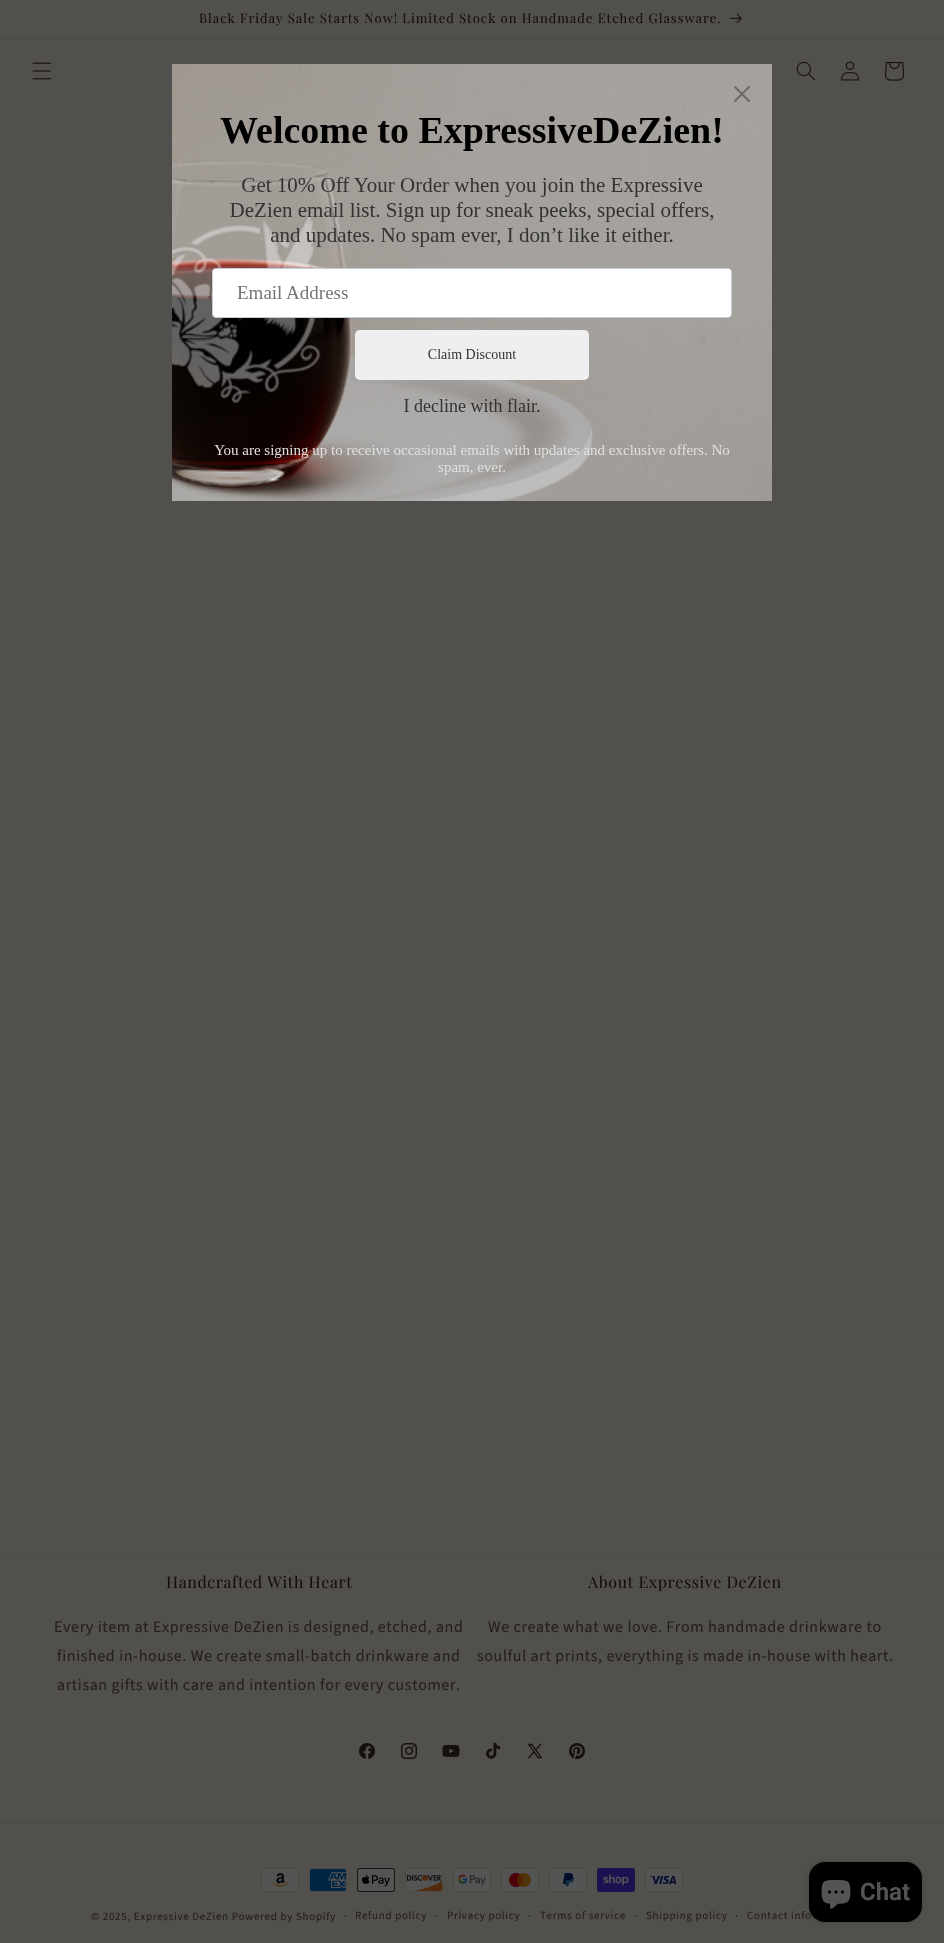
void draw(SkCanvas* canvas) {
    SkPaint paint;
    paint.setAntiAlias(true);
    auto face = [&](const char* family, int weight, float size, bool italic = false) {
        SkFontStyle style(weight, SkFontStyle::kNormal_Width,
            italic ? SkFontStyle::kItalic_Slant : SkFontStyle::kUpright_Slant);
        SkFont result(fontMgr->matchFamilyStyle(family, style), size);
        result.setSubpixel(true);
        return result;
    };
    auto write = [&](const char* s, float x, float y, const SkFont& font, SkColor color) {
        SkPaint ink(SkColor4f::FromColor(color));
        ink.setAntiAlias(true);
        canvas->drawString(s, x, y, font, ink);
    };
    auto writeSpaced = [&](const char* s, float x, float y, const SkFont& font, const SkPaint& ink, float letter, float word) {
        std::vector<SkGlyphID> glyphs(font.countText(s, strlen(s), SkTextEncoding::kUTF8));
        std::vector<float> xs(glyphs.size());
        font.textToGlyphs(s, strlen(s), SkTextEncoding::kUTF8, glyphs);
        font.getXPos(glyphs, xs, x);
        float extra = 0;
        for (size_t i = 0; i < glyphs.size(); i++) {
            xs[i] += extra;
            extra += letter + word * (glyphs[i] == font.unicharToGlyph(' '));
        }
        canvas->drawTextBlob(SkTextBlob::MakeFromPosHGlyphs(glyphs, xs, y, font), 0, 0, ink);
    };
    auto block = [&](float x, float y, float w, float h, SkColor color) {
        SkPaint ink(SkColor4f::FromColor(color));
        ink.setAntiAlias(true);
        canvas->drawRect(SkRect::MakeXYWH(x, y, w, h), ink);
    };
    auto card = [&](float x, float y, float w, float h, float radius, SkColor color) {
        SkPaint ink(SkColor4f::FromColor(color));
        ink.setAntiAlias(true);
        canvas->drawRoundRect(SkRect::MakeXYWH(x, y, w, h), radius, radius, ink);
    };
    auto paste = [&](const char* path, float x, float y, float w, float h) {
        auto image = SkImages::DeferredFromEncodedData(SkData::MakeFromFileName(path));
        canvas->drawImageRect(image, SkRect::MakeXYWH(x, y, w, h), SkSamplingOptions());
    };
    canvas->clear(SkColorSetRGB(247, 241, 229));
    block(0, 38, 944, 1, SkColorSetRGB(232, 225, 213));
    auto kFont1 = face("Playfair Display", 400, 13);
    paint.setColor(SkColorSetRGB(62, 47, 28));
    writeSpaced("Black Friday Sale Starts Now! Limited Stock on Handmade Etched Glassware.", 199, 23, kFont1, paint, 1, 0);
    paste("pic2.png", 730, 13, 12, 11);
    paste("pic3.png", 32, 62, 20, 18);
    paste("pic4.png", 796, 61, 19, 20);
    paste("pic5.png", 841, 61, 18, 20);
    paste("pic6.png", 885, 62, 20, 19);
    block(0, 1555, 944, 1, SkColorSetRGB(232, 225, 213));
    auto kFont2 = face("Playfair Display", 400, 16);
    writeSpaced("Handcrafted With Heart", 166, 1588, kFont2, paint, 0.6f, 0);
    auto kFont3 = face("Source Sans Pro", 400, 16);
    paint.setColor(SkColorSetRGB(108, 96, 78));
    writeSpaced("Every item at Expressive DeZien is designed, etched, and", 54, 1632, kFont3, paint, 0.6f, 0);
    writeSpaced("finished in-house. We create small-batch drinkware and", 57, 1661, kFont3, paint, 0.6f, 0);
    writeSpaced("artisan gifts with care and intention for every customer.", 57, 1690, kFont3, paint, 0.6f, 0);
    paint.setColor(SkColorSetRGB(62, 47, 28));
    writeSpaced("About Expressive DeZien", 588, 1588, kFont2, paint, 0.6f, 0);
    paint.setColor(SkColorSetRGB(108, 96, 78));
    writeSpaced("We create what we love. From handmade drinkware to", 488, 1632, kFont3, paint, 0.6f, 0);
    writeSpaced("soulful art prints, everything is made in-house with heart.", 477, 1661, kFont3, paint, 0.6f, 0);
    paste("pic7.png", 359, 1743, 16, 16);
    paste("pic8.png", 401, 1743, 16, 16);
    paste("pic9.png", 442, 1745, 18, 12);
    paste("pic10.png", 486, 1742, 15, 17);
    paste("pic11.png", 527, 1743, 16, 16);
    paste("pic12.png", 569, 1743, 16, 16);
    block(0, 1822, 944, 1, SkColorSetRGB(232, 225, 213));
    paste("pic13.png", 261, 1868, 38, 24);
    paste("pic14.png", 309, 1868, 38, 24);
    paste("pic15.png", 357, 1868, 38, 24);
    paste("pic16.png", 405, 1868, 38, 24);
    paste("pic17.png", 453, 1868, 38, 24);
    paste("pic18.png", 501, 1868, 38, 24);
    paste("pic19.png", 549, 1868, 38, 24);
    paste("pic20.png", 597, 1868, 38, 24);
    paste("pic21.png", 645, 1868, 38, 24);
    auto kFont4 = face("Source Sans Pro", 400, 11);
    writeSpaced("© 2025, Expressive DeZien Powered by Shopify", 91, 1920, kFont4, paint, 0.7f, 0);
    auto kFont5 = face("Source Sans Pro", 400, 12);
    writeSpaced("·", 344, 1920, kFont5, paint, 0.7f, 0);
    writeSpaced("Refund policy", 355, 1919, kFont4, paint, 0.7f, 0);
    writeSpaced("·", 435, 1920, kFont5, paint, 0.7f, 0);
    writeSpaced("Privacy policy", 447, 1919, kFont4, paint, 0.7f, 0);
    writeSpaced("·", 528, 1920, kFont5, paint, 0.7f, 0);
    writeSpaced("Terms of service", 540, 1919, kFont4, paint, 0.7f, 0);
    writeSpaced("·", 634, 1920, kFont5, paint, 0.7f, 0);
    writeSpaced("Shipping policy", 646, 1919, kFont4, paint, 0.7f, 0);
    writeSpaced("·", 735, 1920, kFont5, paint, 0.7f, 0);
    writeSpaced("Contact info", 747, 1919, kFont4, paint, 0.7f, 0);
    paint.setColor(SkColorSetARGB(38, 0, 0, 0));
    paint.setMaskFilter(SkMaskFilter::MakeBlur(kNormal_SkBlurStyle, 2.5f));
    canvas->drawRoundRect(SkRect::MakeXYWH(809, 1862, 113, 60), 16, 16, paint);
    paint.setMaskFilter(nullptr);
    card(809, 1862, 113, 60, 16, SK_ColorBLACK);
    paste("pic22.png", 821, 1880, 30, 29);
    auto kFont6 = face("Roboto", 600, 24);
    write("Chat", 860, 1900, kFont6, SK_ColorWHITE);
    paste("pic1.png", 0, 0, 944, 1943);
}
